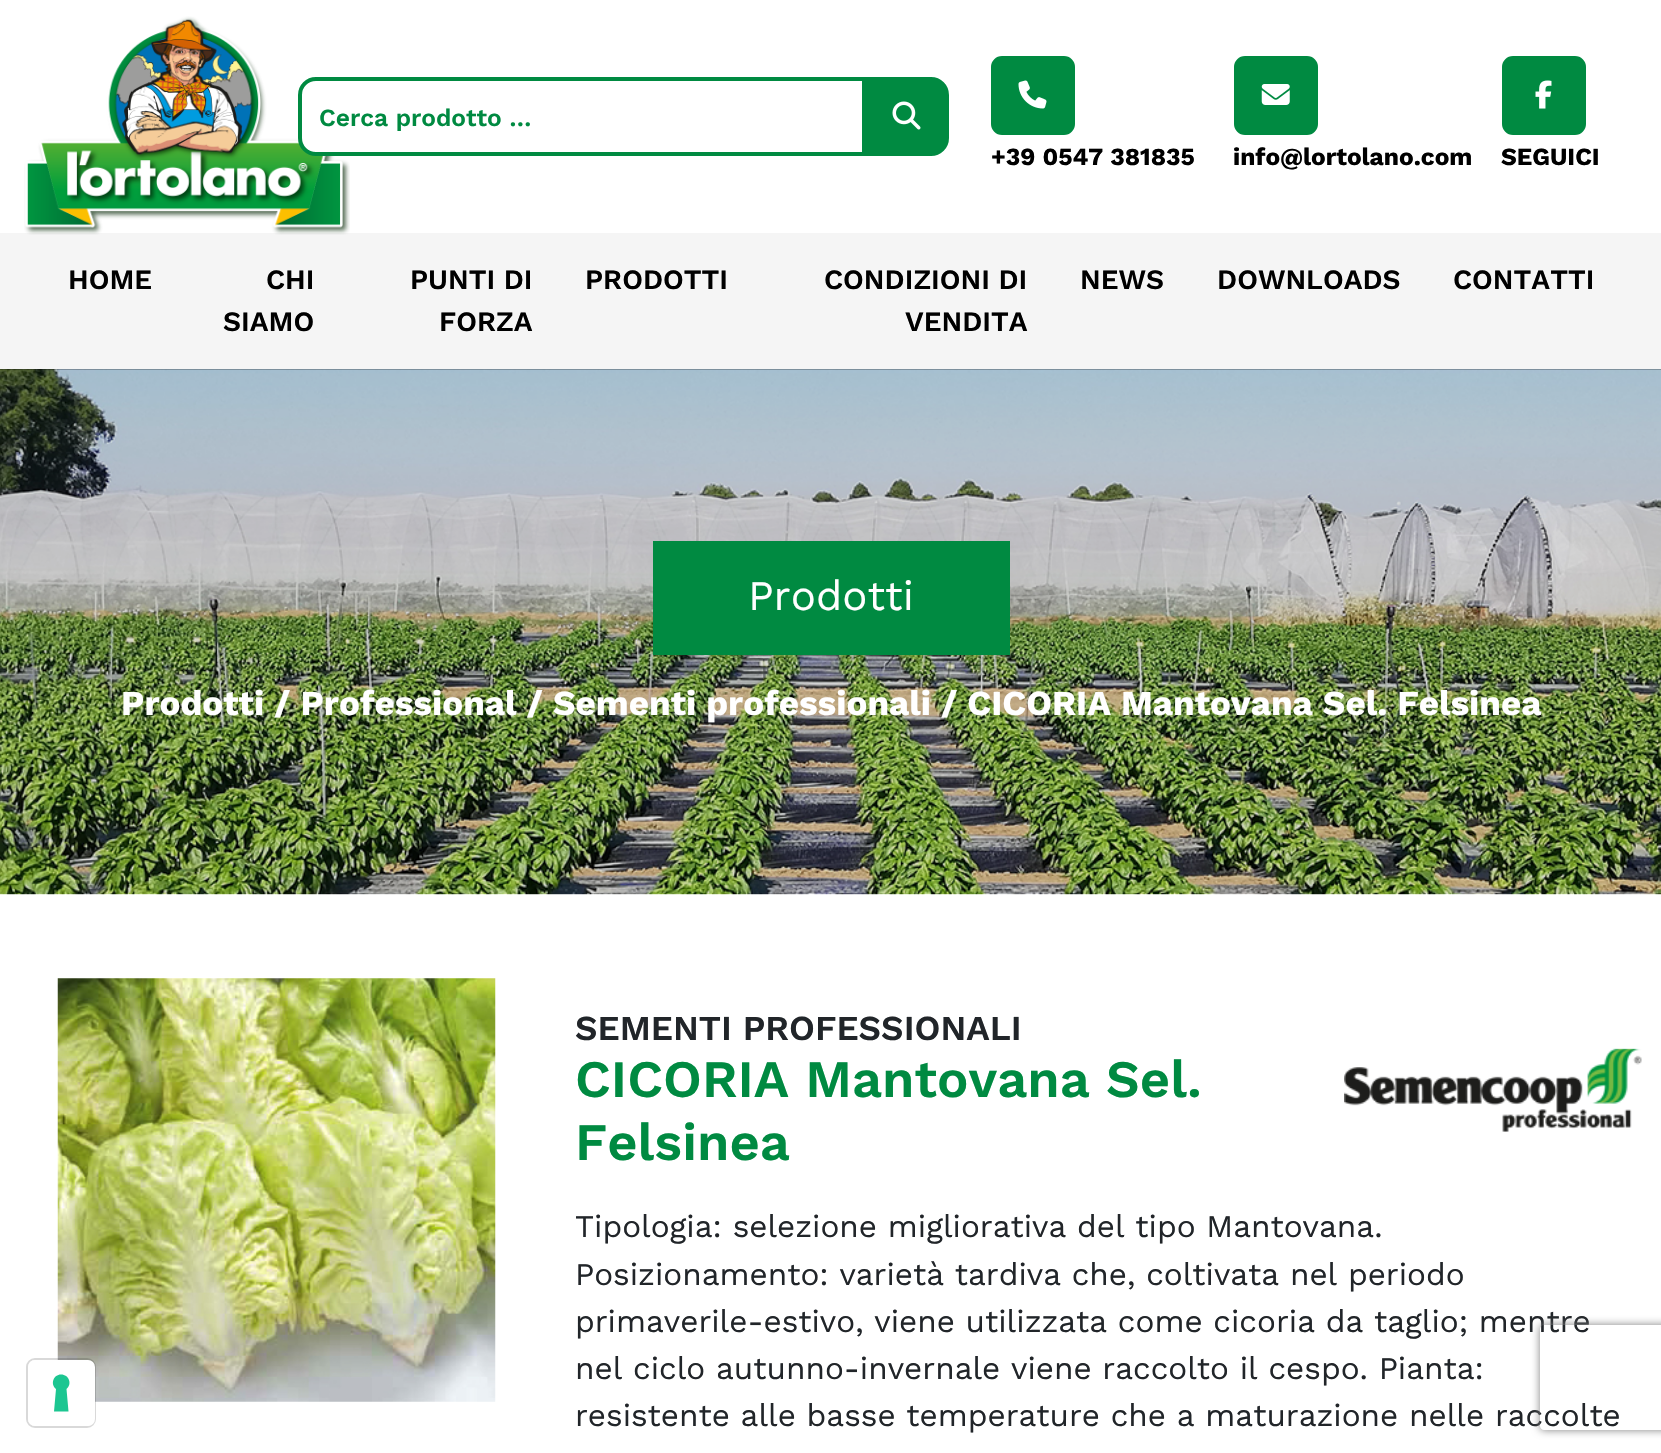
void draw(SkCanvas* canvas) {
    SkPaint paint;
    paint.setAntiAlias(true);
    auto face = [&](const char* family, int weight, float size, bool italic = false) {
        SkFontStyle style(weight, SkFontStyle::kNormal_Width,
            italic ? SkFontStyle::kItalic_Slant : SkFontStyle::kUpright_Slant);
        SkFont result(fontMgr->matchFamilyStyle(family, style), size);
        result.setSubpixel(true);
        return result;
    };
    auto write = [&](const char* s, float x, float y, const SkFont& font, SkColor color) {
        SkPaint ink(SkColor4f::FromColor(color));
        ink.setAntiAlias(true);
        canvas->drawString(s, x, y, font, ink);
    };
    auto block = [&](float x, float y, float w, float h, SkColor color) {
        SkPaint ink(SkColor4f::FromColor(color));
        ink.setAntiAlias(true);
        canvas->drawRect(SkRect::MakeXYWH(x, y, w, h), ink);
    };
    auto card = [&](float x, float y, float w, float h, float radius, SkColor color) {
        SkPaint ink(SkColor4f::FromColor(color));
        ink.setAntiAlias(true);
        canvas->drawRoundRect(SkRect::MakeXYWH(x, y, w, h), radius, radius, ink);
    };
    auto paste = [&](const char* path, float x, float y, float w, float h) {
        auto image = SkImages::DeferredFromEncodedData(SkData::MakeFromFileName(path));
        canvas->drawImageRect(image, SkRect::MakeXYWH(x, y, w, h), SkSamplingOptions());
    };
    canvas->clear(SK_ColorWHITE);
    block(0, 233, 1661, 136, SkColorSetRGB(245, 245, 245));
    paste("pic1.png", 24, 16, 326, 219);
    paint.setColor(SK_ColorWHITE);
    canvas->drawPath(SkPathBuilder().moveTo(316, 79).lineTo(864, 79).lineTo(864, 154).lineTo(316, 154).cubicTo(307, 154, 300, 147, 300, 138).lineTo(300, 95).cubicTo(300, 86, 307, 79, 316, 79).close().detach(), paint);
    paint.setStyle(SkPaint::kStroke_Style);
    paint.setStrokeWidth(4);
    paint.setColor(SkColorSetRGB(0, 138, 65));
    canvas->drawPath(SkPathBuilder().moveTo(316, 79).lineTo(864, 79).lineTo(864, 154).lineTo(316, 154).cubicTo(307, 154, 300, 147, 300, 138).lineTo(300, 95).cubicTo(300, 86, 307, 79, 316, 79).close().detach(), paint);
    canvas->save();
    canvas->clipRect(SkRect::MakeXYWH(319, 103, 500, 28));
    auto kFont1 = face("Work Sans", 600, 24.5f);
    write("Cerca prodotto …", 319, 126, kFont1, SkColorSetRGB(0, 138, 65));
    canvas->restore();
    paint.setStyle(SkPaint::kFill_Style);
    canvas->drawPath(SkPathBuilder().moveTo(866, 78).lineTo(931, 78).cubicTo(940.5f, 78, 948, 85.5f, 948, 95).lineTo(948, 138).cubicTo(948, 147.5f, 940.5f, 155, 931, 155).lineTo(866, 155).close().detach(), paint);
    paint.setStyle(SkPaint::kStroke_Style);
    paint.setStrokeWidth(2);
    canvas->drawPath(SkPathBuilder().moveTo(866, 78).lineTo(931, 78).cubicTo(940.5f, 78, 948, 85.5f, 948, 95).lineTo(948, 138).cubicTo(948, 147.5f, 940.5f, 155, 931, 155).lineTo(866, 155).close().detach(), paint);
    paste("pic2.png", 892, 101, 29, 29);
    paint.setStyle(SkPaint::kFill_Style);
    canvas->drawRoundRect(SkRect::MakeXYWH(992, 57, 82, 77), 10, 10, paint);
    paint.setStyle(SkPaint::kStroke_Style);
    canvas->drawRoundRect(SkRect::MakeXYWH(992, 57, 82, 77), 10, 10, paint);
    paste("pic3.png", 1018, 80, 29, 29);
    auto kFont2 = face("Work Sans", 700, 24.5f);
    write("+39 0547 381835", 991, 165, kFont2, SK_ColorBLACK);
    paint.setStyle(SkPaint::kFill_Style);
    canvas->drawRoundRect(SkRect::MakeXYWH(1235, 57, 82, 77), 10, 10, paint);
    paint.setStyle(SkPaint::kStroke_Style);
    canvas->drawRoundRect(SkRect::MakeXYWH(1235, 57, 82, 77), 10, 10, paint);
    paste("pic4.png", 1261, 84, 29, 21);
    write("info@lortolano.com", 1233, 165, kFont2, SK_ColorBLACK);
    paint.setStyle(SkPaint::kFill_Style);
    canvas->drawRoundRect(SkRect::MakeXYWH(1503, 57, 82, 77), 10, 10, paint);
    paint.setStyle(SkPaint::kStroke_Style);
    canvas->drawRoundRect(SkRect::MakeXYWH(1503, 57, 82, 77), 10, 10, paint);
    paste("pic5.png", 1535, 80, 17, 29);
    write("SEGUICI", 1501, 165, kFont2, SK_ColorBLACK);
    auto kFont3 = face("Work Sans", 600, 28);
    write("HOME", 68, 289, kFont3, SK_ColorBLACK);
    write("CHI", 266, 289, kFont3, SK_ColorBLACK);
    write("SIAMO", 223, 331, kFont3, SK_ColorBLACK);
    write("PUNTI DI", 410, 289, kFont3, SK_ColorBLACK);
    write("FORZA", 439, 331, kFont3, SK_ColorBLACK);
    write("PRODOTTI", 585, 289, kFont3, SK_ColorBLACK);
    write("CONDIZIONI DI", 824, 289, kFont3, SK_ColorBLACK);
    write("VENDITA", 905, 331, kFont3, SK_ColorBLACK);
    write("NEWS", 1080, 289, kFont3, SK_ColorBLACK);
    write("DOWNLOADS", 1217, 289, kFont3, SK_ColorBLACK);
    write("CONTATTI", 1453, 289, kFont3, SK_ColorBLACK);
    block(0, 369, 1661, 525, SK_ColorBLACK);
    paste("pic6.png", 0, 369, 1661, 526);
    block(653, 541, 357, 114, SkColorSetRGB(0, 138, 65));
    auto kFont4 = face("Work Sans", 400, 42);
    write("Prodotti", 748, 610, kFont4, SK_ColorWHITE);
    auto kFont5 = face("Work Sans", 700, 35);
    write("Prodotti / Professional / Sementi professionali / CICORIA Mantovana Sel. Felsinea", 121, 715, kFont5, SK_ColorWHITE);
    paste("pic7.png", 57, 978, 439, 424);
    auto kFont6 = face("Work Sans", 600, 35);
    write("SEMENTI PROFESSIONALI", 575, 1040, kFont6, SkColorSetRGB(33, 37, 41));
    auto kFont7 = face("Work Sans", 600, 52.5f);
    write("CICORIA Mantovana Sel.", 575, 1097, kFont7, SkColorSetRGB(0, 138, 65));
    write("Felsinea", 575, 1160, kFont7, SkColorSetRGB(0, 138, 65));
    paste("pic8.png", 1344, 1048, 298, 84);
    auto kFont8 = face("Work Sans", 400, 31.5f);
    write("Tipologia: selezione migliorativa del tipo Mantovana.", 575, 1237, kFont8, SkColorSetRGB(33, 37, 41));
    write("Posizionamento: varietà tardiva che, coltivata nel periodo", 575, 1285, kFont8, SkColorSetRGB(33, 37, 41));
    write("primaverile-estivo, viene utilizzata come cicoria da taglio; mentre", 575, 1332, kFont8, SkColorSetRGB(33, 37, 41));
    write("nel ciclo autunno-invernale viene raccolto il cespo. Pianta:", 575, 1379, kFont8, SkColorSetRGB(33, 37, 41));
    write("resistente alle basse temperature che a maturazione nelle raccolte", 575, 1426, kFont8, SkColorSetRGB(33, 37, 41));
    paint.setColor(SkColorSetARGB(38, 0, 0, 0));
    canvas->drawRoundRect(SkRect::MakeXYWH(27, 1359, 68, 68), 8, 8, paint);
    card(28, 1360, 67, 66, 7, SK_ColorWHITE);
    paint.setStyle(SkPaint::kFill_Style);
    paint.setColor(SkColorSetRGB(28, 198, 145));
    canvas->drawPath(SkPathBuilder(SkPathFillType::kEvenOdd).moveTo(61, 1374.5f).cubicTo(69, 1374.5f, 72.5f, 1384, 66.5f, 1389).lineTo(68.5f, 1411.5f).lineTo(54, 1411.5f).lineTo(56, 1389).cubicTo(50, 1384, 53.5f, 1374.5f, 61, 1374.5f).close().detach(), paint);
    canvas->save();
    canvas->clipPath(SkPathBuilder(SkPathFillType::kEvenOdd).moveTo(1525, 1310).lineTo(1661, 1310).lineTo(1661, 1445).lineTo(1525, 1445).close().moveTo(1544, 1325).lineTo(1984, 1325).cubicTo(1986, 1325, 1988, 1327, 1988, 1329).lineTo(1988, 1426).cubicTo(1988, 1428, 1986, 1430, 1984, 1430).lineTo(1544, 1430).cubicTo(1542, 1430, 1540, 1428, 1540, 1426).lineTo(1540, 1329).cubicTo(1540, 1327, 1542, 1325, 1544, 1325).close().detach(), true);
    paint.setColor(SkColorSetRGB(128, 128, 128));
    paint.setMaskFilter(SkMaskFilter::MakeBlur(kNormal_SkBlurStyle, 4.5f));
    canvas->drawRoundRect(SkRect::MakeXYWH(1540, 1325, 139, 105), 4, 4, paint);
    paint.setMaskFilter(nullptr);
    canvas->restore();
}
